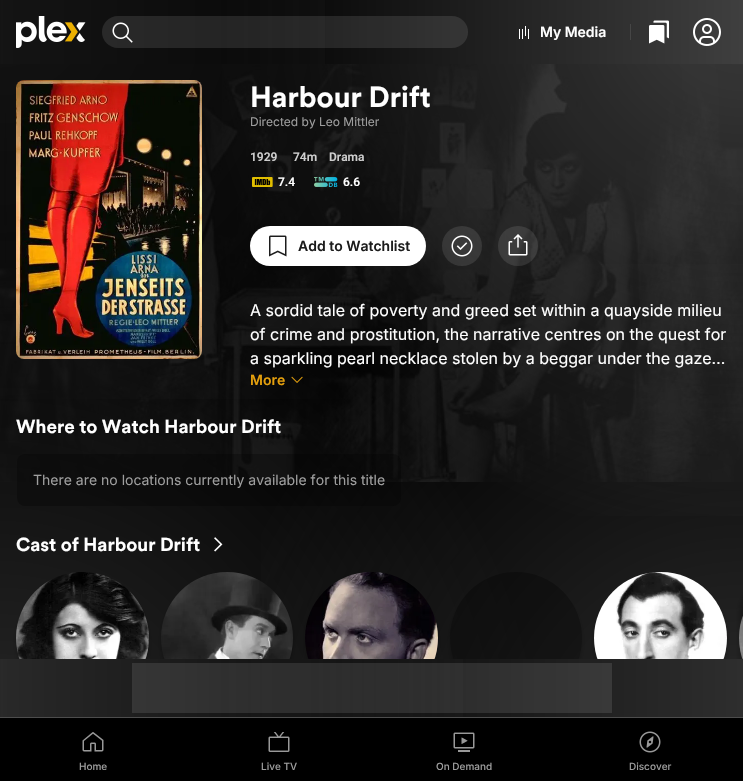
void draw(SkCanvas* canvas) {
    SkPaint paint;
    paint.setAntiAlias(true);
    auto face = [&](const char* family, int weight, float size, bool italic = false) {
        SkFontStyle style(weight, SkFontStyle::kNormal_Width,
            italic ? SkFontStyle::kItalic_Slant : SkFontStyle::kUpright_Slant);
        SkFont result(fontMgr->matchFamilyStyle(family, style), size);
        result.setSubpixel(true);
        return result;
    };
    auto write = [&](const char* s, float x, float y, const SkFont& font, SkColor color) {
        SkPaint ink(SkColor4f::FromColor(color));
        ink.setAntiAlias(true);
        canvas->drawString(s, x, y, font, ink);
    };
    auto block = [&](float x, float y, float w, float h, SkColor color) {
        SkPaint ink(SkColor4f::FromColor(color));
        ink.setAntiAlias(true);
        canvas->drawRect(SkRect::MakeXYWH(x, y, w, h), ink);
    };
    auto card = [&](float x, float y, float w, float h, float radius, SkColor color) {
        SkPaint ink(SkColor4f::FromColor(color));
        ink.setAntiAlias(true);
        canvas->drawRoundRect(SkRect::MakeXYWH(x, y, w, h), radius, radius, ink);
    };
    auto paste = [&](const char* path, float x, float y, float w, float h) {
        auto image = SkImages::DeferredFromEncodedData(SkData::MakeFromFileName(path));
        canvas->drawImageRect(image, SkRect::MakeXYWH(x, y, w, h), SkSamplingOptions());
    };
    canvas->clear(SK_ColorWHITE);
    {
        const SkColor colors[] = {SK_ColorBLACK, SkColorSetRGB(63, 63, 63)};
        const float stops[] = {0.3f, 1};
        const SkPoint ends[] = {{0, 32}, {743, 32}};
        paint.setShader(SkGradientShader::MakeLinear(ends, colors, stops, 2, SkTileMode::kClamp));
        paint.setAlpha(255);
    }
    canvas->drawRect(SkRect::MakeXYWH(3, 0, 740, 64), paint);
    {
        const SkColor colors[] = {SkColorSetRGB(20, 20, 20), SkColorSetARGB(0, 20, 20, 20)};
        const float stops[] = {0, 0.7f};
        const SkPoint ends[] = {{0, 32}, {743, 32}};
        paint.setShader(SkGradientShader::MakeLinear(ends, colors, stops, 2, SkTileMode::kClamp));
        paint.setAlpha(255);
    }
    canvas->drawRect(SkRect::MakeXYWH(0, 0, 325, 64), paint);
    paste("pic1.png", 16, 16, 70, 32);
    card(102, 16, 366, 32, 16, SkColorSetARGB(26, 255, 255, 255));
    paste("pic2.png", 112, 22, 21, 21);
    paste("pic3.png", 519, 26, 10, 13);
    auto kFont1 = face("Inter", 600, 14);
    write("My Media", 540, 37, kFont1, SK_ColorWHITE);
    block(630, 24, 1, 16, SkColorSetRGB(70, 70, 70));
    paste("pic4.png", 649, 20, 20, 24);
    paste("pic5.png", 693, 18, 28, 28);
    {
        const SkColor colors[] = {SkColorSetRGB(41, 41, 41), SK_ColorBLACK};
        const float stops[] = {0, 0.7f};
        paint.setShader(SkGradientShader::MakeRadial({0, 781}, 781, colors, stops, 2, SkTileMode::kClamp));
        paint.setAlpha(255);
    }
    canvas->drawRect(SkRect::MakeXYWH(0, 64, 743, 595), paint);
    {
        const SkColor colors[] = {SkColorSetRGB(46, 46, 46), SkColorSetARGB(0, 46, 46, 46)};
        const float stops[] = {0, 0.7f};
        paint.setShader(SkGradientShader::MakeRadial({743, 781}, 781, colors, stops, 2, SkTileMode::kClamp));
        paint.setAlpha(255);
    }
    canvas->drawRect(SkRect::MakeXYWH(261, 264, 482, 395), paint);
    {
        const SkColor colors[] = {SkColorSetRGB(63, 63, 63), SkColorSetARGB(0, 63, 63, 63)};
        const float stops[] = {0, 0.7f};
        paint.setShader(SkGradientShader::MakeRadial({743, 0}, 781, colors, stops, 2, SkTileMode::kClamp));
        paint.setAlpha(255);
    }
    canvas->drawRect(SkRect::MakeXYWH(222, 64, 521, 452), paint);
    {
        const SkColor colors[] = {SkColorSetRGB(20, 20, 20), SkColorSetARGB(0, 20, 20, 20)};
        const float stops[] = {0, 0.7f};
        paint.setShader(SkGradientShader::MakeRadial({0, 0}, 781, colors, stops, 2, SkTileMode::kClamp));
        paint.setAlpha(255);
    }
    canvas->drawRect(SkRect::MakeXYWH(0, 64, 352, 335), paint);
    paste("pic6.png", 0, 64, 743, 418);
    card(16, 80, 186, 279, 8, SkColorSetARGB(77, 0, 0, 0));
    paste("pic7.png", 16, 80, 186, 279);
    auto kFont2 = face("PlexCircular", 700, 29);
    write("Harbour Drift", 250, 107, kFont2, SK_ColorWHITE);
    auto kFont3 = face("Inter", 400, 12);
    write("Directed by", 250, 126, kFont3, SkColorSetRGB(158, 158, 158));
    write("Leo Mittler", 319, 126, kFont3, SkColorSetRGB(158, 158, 158));
    auto kFont4 = face("Roboto", 600, 12);
    write("1929", 250, 161, kFont4, SkColorSetRGB(207, 207, 207));
    write("74m", 293, 161, kFont4, SkColorSetRGB(207, 207, 207));
    write("Drama", 329, 161, kFont4, SkColorSetRGB(207, 207, 207));
    paste("pic8.png", 252, 177, 21, 10);
    write("7.4", 278, 186, kFont4, SK_ColorWHITE);
    paste("pic9.png", 314, 177, 24, 10);
    write("6.6", 343, 186, kFont4, SK_ColorWHITE);
    card(250, 226, 176, 40, 20, SK_ColorWHITE);
    paste("pic10.png", 269, 235, 18, 22);
    write("Add to Watchlist", 298, 251, kFont1, SkColorSetRGB(28, 28, 28));
    paint.setShader(nullptr);
    paint.setColor(SkColorSetARGB(26, 255, 255, 255));
    canvas->drawCircle(462, 246, 20, paint);
    paste("pic11.png", 451, 235, 22, 22);
    canvas->drawCircle(518, 246, 20, paint);
    paste("pic12.png", 508, 234, 20, 22);
    auto kFont5 = face("Inter", 400, 16);
    write("A sordid tale of poverty and greed set within a quayside milieu", 250, 316, kFont5, SK_ColorWHITE);
    write("of crime and prostitution, the narrative centres on the quest for", 250, 340, kFont5, SK_ColorWHITE);
    write("a sparkling pearl necklace stolen by a beggar under the gaze…", 250, 364, kFont5, SK_ColorWHITE);
    write("More", 250, 385, kFont1, SkColorSetRGB(229, 160, 13));
    paste("pic13.png", 291, 376, 12, 7);
    auto kFont6 = face("PlexCircular", 700, 18.75f);
    write("Where to Watch Harbour Drift", 16, 433, kFont6, SK_ColorWHITE);
    card(17, 454, 384, 52, 8, SkColorSetARGB(77, 0, 0, 0));
    auto kFont7 = face("Inter", 400, 14);
    write("There are no locations currently available for this title", 33, 485, kFont7, SkColorSetRGB(158, 158, 158));
    write("Cast of Harbour Drift", 16, 551, kFont6, SK_ColorWHITE);
    paste("pic14.png", 214, 537, 9, 15);
    paint.setColor(SkColorSetARGB(51, 0, 0, 0));
    paint.setMaskFilter(SkMaskFilter::MakeBlur(kNormal_SkBlurStyle, 2));
    canvas->drawRoundRect(SkRect::MakeXYWH(16, 576, 133, 132), 66, 66, paint);
    paint.setMaskFilter(nullptr);
    paste("pic15.png", 16, 572, 133, 87);
    paint.setMaskFilter(SkMaskFilter::MakeBlur(kNormal_SkBlurStyle, 2));
    canvas->drawRoundRect(SkRect::MakeXYWH(161, 576, 132, 132), 66, 66, paint);
    paint.setMaskFilter(nullptr);
    paste("pic16.png", 161, 572, 132, 87);
    paint.setMaskFilter(SkMaskFilter::MakeBlur(kNormal_SkBlurStyle, 2));
    canvas->drawRoundRect(SkRect::MakeXYWH(305, 576, 133, 132), 66, 66, paint);
    paint.setMaskFilter(nullptr);
    paste("pic17.png", 305, 572, 133, 87);
    canvas->save();
    canvas->clipPath(SkPathBuilder(SkPathFillType::kEvenOdd).moveTo(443, 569).lineTo(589, 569).lineTo(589, 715).lineTo(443, 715).close().moveTo(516, 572).cubicTo(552.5f, 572, 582, 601.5f, 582, 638).cubicTo(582, 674.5f, 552.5f, 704, 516, 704).cubicTo(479.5f, 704, 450, 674.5f, 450, 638).cubicTo(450, 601.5f, 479.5f, 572, 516, 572).close().detach(), true);
    paint.setMaskFilter(SkMaskFilter::MakeBlur(kNormal_SkBlurStyle, 2));
    canvas->drawRoundRect(SkRect::MakeXYWH(450, 576, 132, 132), 66, 66, paint);
    paint.setMaskFilter(nullptr);
    canvas->restore();
    paint.setColor(SkColorSetARGB(77, 0, 0, 0));
    canvas->drawCircle(516, 638, 66, paint);
    paint.setColor(SkColorSetARGB(51, 0, 0, 0));
    paint.setMaskFilter(SkMaskFilter::MakeBlur(kNormal_SkBlurStyle, 2));
    canvas->drawRoundRect(SkRect::MakeXYWH(594, 576, 133, 132), 66, 66, paint);
    paint.setMaskFilter(nullptr);
    paste("pic18.png", 594, 572, 133, 87);
    paint.setMaskFilter(SkMaskFilter::MakeBlur(kNormal_SkBlurStyle, 2));
    canvas->drawRoundRect(SkRect::MakeXYWH(739, 576, 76, 132), 66, 66, paint);
    paint.setMaskFilter(nullptr);
    paste("pic19.png", 739, 616, 4, 43);
    {
        const SkColor colors[] = {SK_ColorBLACK, SkColorSetRGB(46, 46, 46)};
        const float stops[] = {0.3f, 1};
        const SkPoint ends[] = {{0, 688}, {743, 688}};
        paint.setShader(SkGradientShader::MakeLinear(ends, colors, stops, 2, SkTileMode::kClamp));
        paint.setAlpha(255);
    }
    canvas->drawRect(SkRect::MakeXYWH(3, 659, 740, 58), paint);
    {
        const SkColor colors[] = {SkColorSetRGB(41, 41, 41), SkColorSetARGB(0, 41, 41, 41)};
        const float stops[] = {0, 0.7f};
        const SkPoint ends[] = {{0, 688}, {743, 688}};
        paint.setShader(SkGradientShader::MakeLinear(ends, colors, stops, 2, SkTileMode::kClamp));
        paint.setAlpha(255);
    }
    canvas->drawRect(SkRect::MakeXYWH(0, 659, 463, 58), paint);
    block(132, 663, 480, 50, SkColorSetARGB(26, 255, 255, 255));
    block(0, 718, 743, 63, SK_ColorBLACK);
    block(0, 717, 743, 1, SkColorSetRGB(77, 77, 77));
    paste("pic20.png", 82, 732, 22, 20);
    auto kFont8 = face("Inter", 500, 10);
    write("Home", 79, 770, kFont8, SkColorSetRGB(158, 158, 158));
    paste("pic21.png", 268, 732, 22, 20);
    write("Live TV", 261, 770, kFont8, SkColorSetRGB(158, 158, 158));
    paste("pic22.png", 453, 732, 22, 20);
    write("On Demand", 436, 770, kFont8, SkColorSetRGB(158, 158, 158));
    paste("pic23.png", 639, 731, 22, 22);
    write("Discover", 629, 770, kFont8, SkColorSetRGB(158, 158, 158));
}
